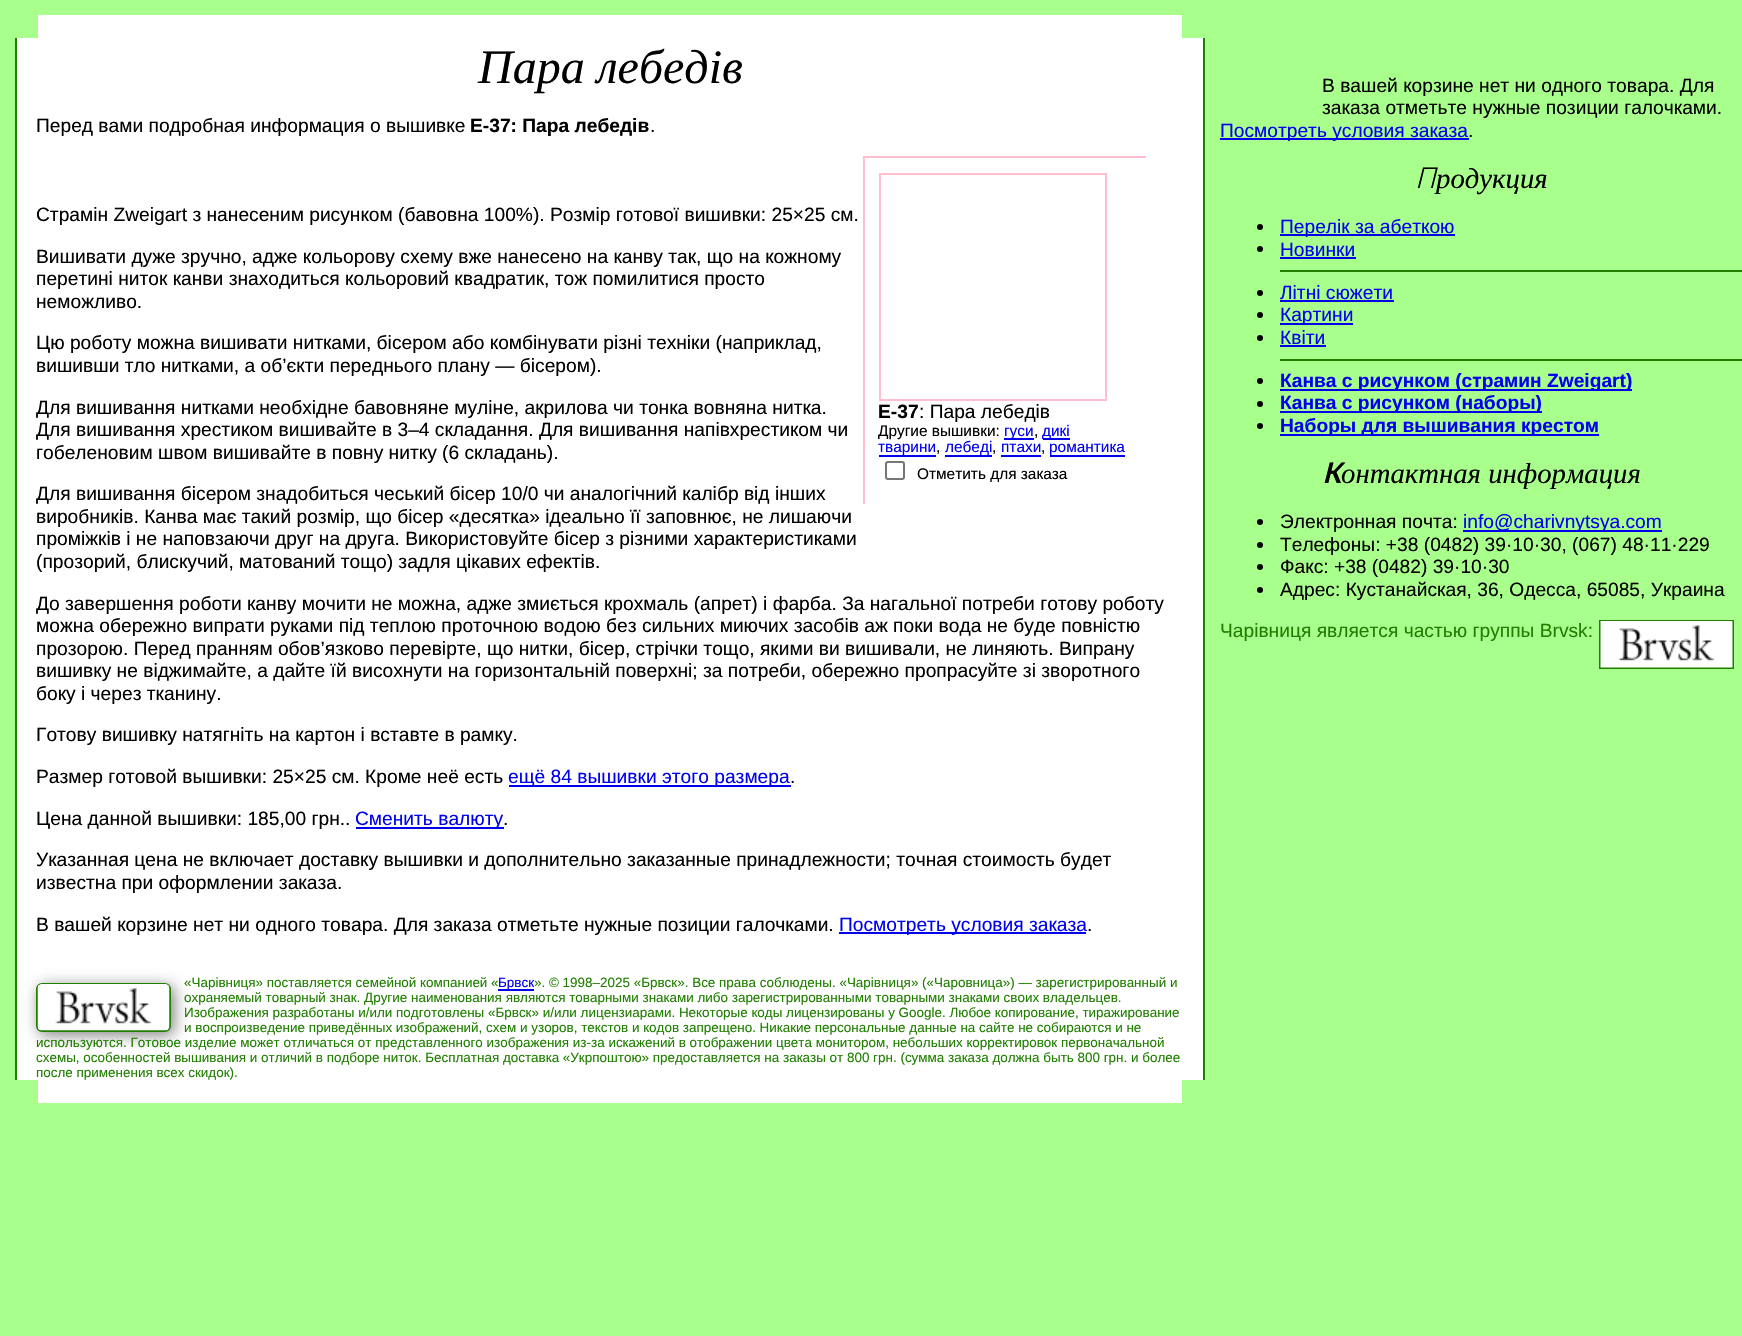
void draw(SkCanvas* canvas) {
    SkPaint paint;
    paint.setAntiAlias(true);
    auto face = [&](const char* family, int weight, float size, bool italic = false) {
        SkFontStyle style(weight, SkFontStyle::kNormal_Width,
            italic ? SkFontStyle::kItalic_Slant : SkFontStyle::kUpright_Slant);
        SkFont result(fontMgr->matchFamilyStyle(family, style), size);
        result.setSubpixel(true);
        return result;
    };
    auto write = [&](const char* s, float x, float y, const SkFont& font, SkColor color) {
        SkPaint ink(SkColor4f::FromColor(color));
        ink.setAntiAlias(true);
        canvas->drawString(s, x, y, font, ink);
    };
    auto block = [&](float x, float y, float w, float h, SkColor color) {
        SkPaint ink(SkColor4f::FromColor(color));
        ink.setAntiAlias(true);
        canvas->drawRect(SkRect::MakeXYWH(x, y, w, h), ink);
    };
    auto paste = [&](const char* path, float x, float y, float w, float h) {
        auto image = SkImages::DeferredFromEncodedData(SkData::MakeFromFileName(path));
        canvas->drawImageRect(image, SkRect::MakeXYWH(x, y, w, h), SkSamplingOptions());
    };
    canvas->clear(SkColorSetRGB(169, 255, 140));
    block(38, 15, 1144, 23, SK_ColorWHITE);
    block(17, 38, 1186, 1042, SK_ColorWHITE);
    block(1203, 38, 2, 1042, SkColorSetRGB(32, 127, 0));
    block(15, 38, 2, 1042, SkColorSetRGB(32, 127, 0));
    auto kFont1 = face("Liberation Serif", 400, 48, true);
    write("Пара лебедів", 478, 83, kFont1, SK_ColorBLACK);
    auto kFont2 = face("Liberation Sans", 400, 19.2f);
    write("Перед вами подробная информация о вышивке", 36, 132, kFont2, SK_ColorBLACK);
    auto kFont3 = face("Liberation Sans", 700, 19.2f);
    write("E-37: Пара лебедів", 470, 132, kFont3, SK_ColorBLACK);
    write(".", 650, 132, kFont2, SK_ColorBLACK);
    write("Страмін Zweigart з нанесеним рисунком (бавовна 100%). Розмір готової вишивки: 25×25 см.", 36, 221, kFont2, SK_ColorBLACK);
    write("Вишивати дуже зручно, адже кольорову схему вже нанесено на канву так, що на кожному", 36, 263, kFont2, SK_ColorBLACK);
    write("перетині ниток канви знаходиться кольоровий квадратик, тож помилитися просто", 36, 285, kFont2, SK_ColorBLACK);
    write("неможливо.", 36, 308, kFont2, SK_ColorBLACK);
    write("Цю роботу можна вишивати нитками, бісером або комбінувати різні техніки (наприклад,", 36, 349, kFont2, SK_ColorBLACK);
    write("вишивши тло нитками, а об’єкти переднього плану — бісером).", 36, 372, kFont2, SK_ColorBLACK);
    write("Для вишивання нитками необхідне бавовняне муліне, акрилова чи тонка вовняна нитка.", 36, 414, kFont2, SK_ColorBLACK);
    write("Для вишивання хрестиком вишивайте в 3–4 складання. Для вишивання напівхрестиком чи", 36, 436, kFont2, SK_ColorBLACK);
    write("гобеленовим швом вишивайте в повну нитку (6 складань).", 36, 459, kFont2, SK_ColorBLACK);
    block(863, 156, 283, 2, SkColorSetRGB(255, 191, 207));
    block(863, 156, 2, 348, SkColorSetRGB(255, 191, 207));
    paint.setStyle(SkPaint::kStroke_Style);
    paint.setStrokeWidth(2);
    paint.setColor(SkColorSetRGB(255, 191, 207));
    canvas->drawRect(SkRect::MakeXYWH(880, 174, 226, 226), paint);
    write("E-37", 878, 418, kFont3, SK_ColorBLACK);
    write(": Пара лебедів", 919, 418, kFont2, SK_ColorBLACK);
    auto kFont4 = face("Liberation Sans", 400, 15.4f);
    write("Другие вышивки:", 878, 436, kFont4, SK_ColorBLACK);
    block(1004, 438, 30, 2, SkColorSetRGB(0, 0, 238));
    write("гуси", 1004, 436, kFont4, SkColorSetRGB(0, 0, 238));
    write(",", 1034, 436, kFont4, SK_ColorBLACK);
    block(1043, 438, 27, 2, SkColorSetRGB(0, 0, 238));
    write("дикі", 1042, 436, kFont4, SkColorSetRGB(0, 0, 238));
    block(879, 455, 57, 2, SkColorSetRGB(0, 0, 238));
    write("тварини", 878, 452, kFont4, SkColorSetRGB(0, 0, 238));
    write(",", 936, 452, kFont4, SK_ColorBLACK);
    block(945, 455, 47, 2, SkColorSetRGB(0, 0, 238));
    write("лебеді", 945, 452, kFont4, SkColorSetRGB(0, 0, 238));
    write(",", 992, 452, kFont4, SK_ColorBLACK);
    write("птахи", 1001, 452, kFont4, SkColorSetRGB(0, 0, 238));
    block(1001, 455, 40, 2, SkColorSetRGB(0, 0, 238));
    write(",", 1041, 452, kFont4, SK_ColorBLACK);
    block(1050, 455, 75, 2, SkColorSetRGB(0, 0, 238));
    write("романтика", 1049, 452, kFont4, SkColorSetRGB(0, 0, 238));
    paint.setColor(SkColorSetRGB(118, 118, 118));
    canvas->drawRoundRect(SkRect::MakeXYWH(886, 462, 18, 17), 2, 2, paint);
    write("Отметить для заказа", 917, 479, kFont4, SK_ColorBLACK);
    write("Для вишивання бісером знадобиться чеський бісер 10/0 чи аналогічний калібр від інших", 36, 500, kFont2, SK_ColorBLACK);
    write("виробників. Канва має такий розмір, що бісер «десятка» ідеально її заповнює, не лишаючи", 36, 523, kFont2, SK_ColorBLACK);
    write("проміжків і не наповзаючи друг на друга. Використовуйте бісер з різними характеристиками", 36, 545, kFont2, SK_ColorBLACK);
    write("(прозорий, блискучий, матований тощо) задля цікавих ефектів.", 36, 568, kFont2, SK_ColorBLACK);
    write("До завершення роботи канву мочити не можна, адже змиється крохмаль (апрет) і фарба. За нагальної потреби готову роботу", 36, 610, kFont2, SK_ColorBLACK);
    write("можна обережно випрати руками під теплою проточною водою без сильних миючих засобів аж поки вода не буде повністю", 36, 632, kFont2, SK_ColorBLACK);
    write("прозорою. Перед пранням обов’язково перевірте, що нитки, бісер, стрічки тощо, якими ви вишивали, не линяють. Випрану", 36, 655, kFont2, SK_ColorBLACK);
    write("вишивку не віджимайте, а дайте їй висохнути на горизонтальній поверхні; за потреби, обережно пропрасуйте зі зворотного", 36, 677, kFont2, SK_ColorBLACK);
    write("боку і через тканину.", 36, 700, kFont2, SK_ColorBLACK);
    write("Готову вишивку натягніть на картон і вставте в рамку.", 36, 741, kFont2, SK_ColorBLACK);
    write("Размер готовой вышивки: 25×25 см. Кроме неё есть", 36, 783, kFont2, SK_ColorBLACK);
    block(509, 785, 282, 2, SkColorSetRGB(0, 0, 238));
    write("ещё 84 вышивки этого размера", 508, 783, kFont2, SkColorSetRGB(0, 0, 238));
    write(".", 790, 783, kFont2, SK_ColorBLACK);
    write("Цена данной вышивки: 185,00 грн..", 36, 825, kFont2, SK_ColorBLACK);
    block(356, 827, 148, 2, SkColorSetRGB(0, 0, 238));
    write("Сменить валюту", 355, 825, kFont2, SkColorSetRGB(0, 0, 238));
    write(".", 503, 825, kFont2, SK_ColorBLACK);
    write("Указанная цена не включает доставку вышивки и дополнительно заказанные принадлежности; точная стоимость будет", 36, 866, kFont2, SK_ColorBLACK);
    write("известна при оформлении заказа.", 36, 889, kFont2, SK_ColorBLACK);
    write("В вашей корзине нет ни одного товара. Для заказа отметьте нужные позиции галочками.", 36, 931, kFont2, SK_ColorBLACK);
    block(839, 932, 247, 2, SkColorSetRGB(0, 0, 238));
    write("Посмотреть условия заказа", 839, 931, kFont2, SkColorSetRGB(0, 0, 238));
    write(".", 1087, 931, kFont2, SK_ColorBLACK);
    paint.setStyle(SkPaint::kFill_Style);
    paint.setColor(SkColorSetRGB(128, 128, 128));
    paint.setMaskFilter(SkMaskFilter::MakeBlur(kNormal_SkBlurStyle, 7.5f));
    canvas->drawRoundRect(SkRect::MakeXYWH(39, 986, 135, 49), 6, 6, paint);
    paint.setMaskFilter(nullptr);
    paint.setStyle(SkPaint::kStroke_Style);
    paint.setColor(SkColorSetRGB(32, 127, 0));
    canvas->drawRoundRect(SkRect::MakeXYWH(37, 984, 133, 47), 5, 5, paint);
    paste("pic1.png", 37, 984, 133, 47);
    auto kFont5 = face("Liberation Sans", 400, 13.45f);
    write("«Чарівниця» поставляется семейной компанией «", 184, 987, kFont5, SkColorSetRGB(32, 127, 0));
    block(498, 989, 36, 2, SkColorSetRGB(0, 0, 238));
    write("Брвск", 498, 987, kFont5, SkColorSetRGB(0, 0, 238));
    write("». © 1998–2025 «Брвск». Все права соблюдены. «Чарівниця» («Чаровница») — зарегистрированный и", 534, 987, kFont5, SkColorSetRGB(32, 127, 0));
    write("охраняемый товарный знак. Другие наименования являются товарными знаками либо зарегистрированными товарными знаками своих владельцев.", 184, 1002, kFont5, SkColorSetRGB(32, 127, 0));
    write("Изображения разработаны и/или подготовлены «Брвск» и/или лицензиарами. Некоторые коды лицензированы у Google. Любое копирование, тиражирование", 184, 1017, kFont5, SkColorSetRGB(32, 127, 0));
    write("и воспроизведение приведённых изображений, схем и узоров, текстов и кодов запрещено. Никакие персональные данные на сайте не собираются и не", 184, 1032, kFont5, SkColorSetRGB(32, 127, 0));
    write("используются. Готовое изделие может отличаться от представленного изображения из-за искажений в отображении цвета монитором, небольших корректировок первоначальной", 36, 1047, kFont5, SkColorSetRGB(32, 127, 0));
    write("схемы, особенностей вышивания и отличий в подборе ниток. Бесплатная доставка «Укрпоштою» предоставляется на заказы от 800 грн. (сумма заказа должна быть 800 грн. и более", 36, 1062, kFont5, SkColorSetRGB(32, 127, 0));
    write("после применения всех скидок).", 36, 1077, kFont5, SkColorSetRGB(32, 127, 0));
    block(38, 1080, 1144, 23, SK_ColorWHITE);
    write("В вашей корзине нет ни одного товара. Для", 1322, 92, kFont2, SK_ColorBLACK);
    write("заказа отметьте нужные позиции галочками.", 1322, 114, kFont2, SK_ColorBLACK);
    block(1220, 138, 249, 2, SkColorSetRGB(0, 0, 238));
    write("Посмотреть условия заказа", 1220, 137, kFont2, SkColorSetRGB(0, 0, 238));
    write(".", 1468, 137, kFont2, SK_ColorBLACK);
    auto kFont6 = face("Noto Sans", 300, 28.75f, true);
    write("П", 1415, 188, kFont6, SK_ColorBLACK);
    auto kFont7 = face("Liberation Serif", 400, 28.75f, true);
    write("родукция", 1436, 188, kFont7, SK_ColorBLACK);
    paint.setStyle(SkPaint::kFill_Style);
    paint.setColor(SK_ColorBLACK);
    canvas->drawCircle(1260, 227, 3, paint);
    block(1280, 234, 175, 2, SkColorSetRGB(0, 0, 238));
    write("Перелік за абеткою", 1280, 233, kFont2, SkColorSetRGB(0, 0, 238));
    canvas->drawCircle(1260, 249, 3, paint);
    write("Новинки", 1280, 256, kFont2, SkColorSetRGB(0, 0, 238));
    block(1280, 257, 76, 2, SkColorSetRGB(0, 0, 238));
    block(1280, 270, 462, 2, SkColorSetRGB(32, 127, 0));
    canvas->drawCircle(1260, 293, 3, paint);
    write("Літні сюжети", 1280, 299, kFont2, SkColorSetRGB(0, 0, 238));
    block(1280, 300, 114, 2, SkColorSetRGB(0, 0, 238));
    canvas->drawCircle(1260, 315, 3, paint);
    block(1280, 323, 73, 2, SkColorSetRGB(0, 0, 238));
    write("Картини", 1280, 321, kFont2, SkColorSetRGB(0, 0, 238));
    canvas->drawCircle(1260, 338, 3, paint);
    write("Квіти", 1280, 344, kFont2, SkColorSetRGB(0, 0, 238));
    block(1280, 345, 46, 2, SkColorSetRGB(0, 0, 238));
    block(1280, 359, 462, 2, SkColorSetRGB(32, 127, 0));
    canvas->drawCircle(1260, 381, 3, paint);
    block(1280, 389, 352, 2, SkColorSetRGB(0, 0, 238));
    write("Канва с рисунком (страмин Zweigart)", 1280, 387, kFont3, SkColorSetRGB(0, 0, 238));
    canvas->drawCircle(1260, 404, 3, paint);
    block(1280, 411, 262, 2, SkColorSetRGB(0, 0, 238));
    write("Канва с рисунком (наборы)", 1280, 409, kFont3, SkColorSetRGB(0, 0, 238));
    canvas->drawCircle(1260, 426, 3, paint);
    block(1280, 434, 319, 2, SkColorSetRGB(0, 0, 238));
    write("Наборы для вышивания крестом", 1280, 432, kFont3, SkColorSetRGB(0, 0, 238));
    auto kFont8 = face("Noto Sans", 600, 28.75f, true);
    write("К", 1322, 483, kFont8, SK_ColorBLACK);
    write("онтактная информация", 1341, 483, kFont7, SK_ColorBLACK);
    canvas->drawCircle(1260, 522, 3, paint);
    write("Электронная почта:", 1280, 528, kFont2, SK_ColorBLACK);
    block(1463, 530, 199, 2, SkColorSetRGB(0, 0, 238));
    write("info@charivnytsya.com", 1463, 528, kFont2, SkColorSetRGB(0, 0, 238));
    canvas->drawCircle(1260, 545, 3, paint);
    write("Телефоны: +38 (0482) 39·10·30, (067) 48·11·229", 1280, 551, kFont2, SK_ColorBLACK);
    canvas->drawCircle(1260, 567, 3, paint);
    write("Факс: +38 (0482) 39·10·30", 1280, 573, kFont2, SK_ColorBLACK);
    canvas->drawCircle(1260, 590, 3, paint);
    write("Адрес: Кустанайская, 36, Одесса, 65085, Украина", 1280, 596, kFont2, SK_ColorBLACK);
    paint.setStyle(SkPaint::kStroke_Style);
    paint.setColor(SkColorSetRGB(32, 127, 0));
    canvas->drawRect(SkRect::MakeXYWH(1600, 621, 133, 47), paint);
    write("Чарівниця является частью группы Brvsk:", 1220, 637, kFont2, SkColorSetRGB(32, 127, 0));
    paste("pic2.png", 1600, 621, 133, 47);
}
